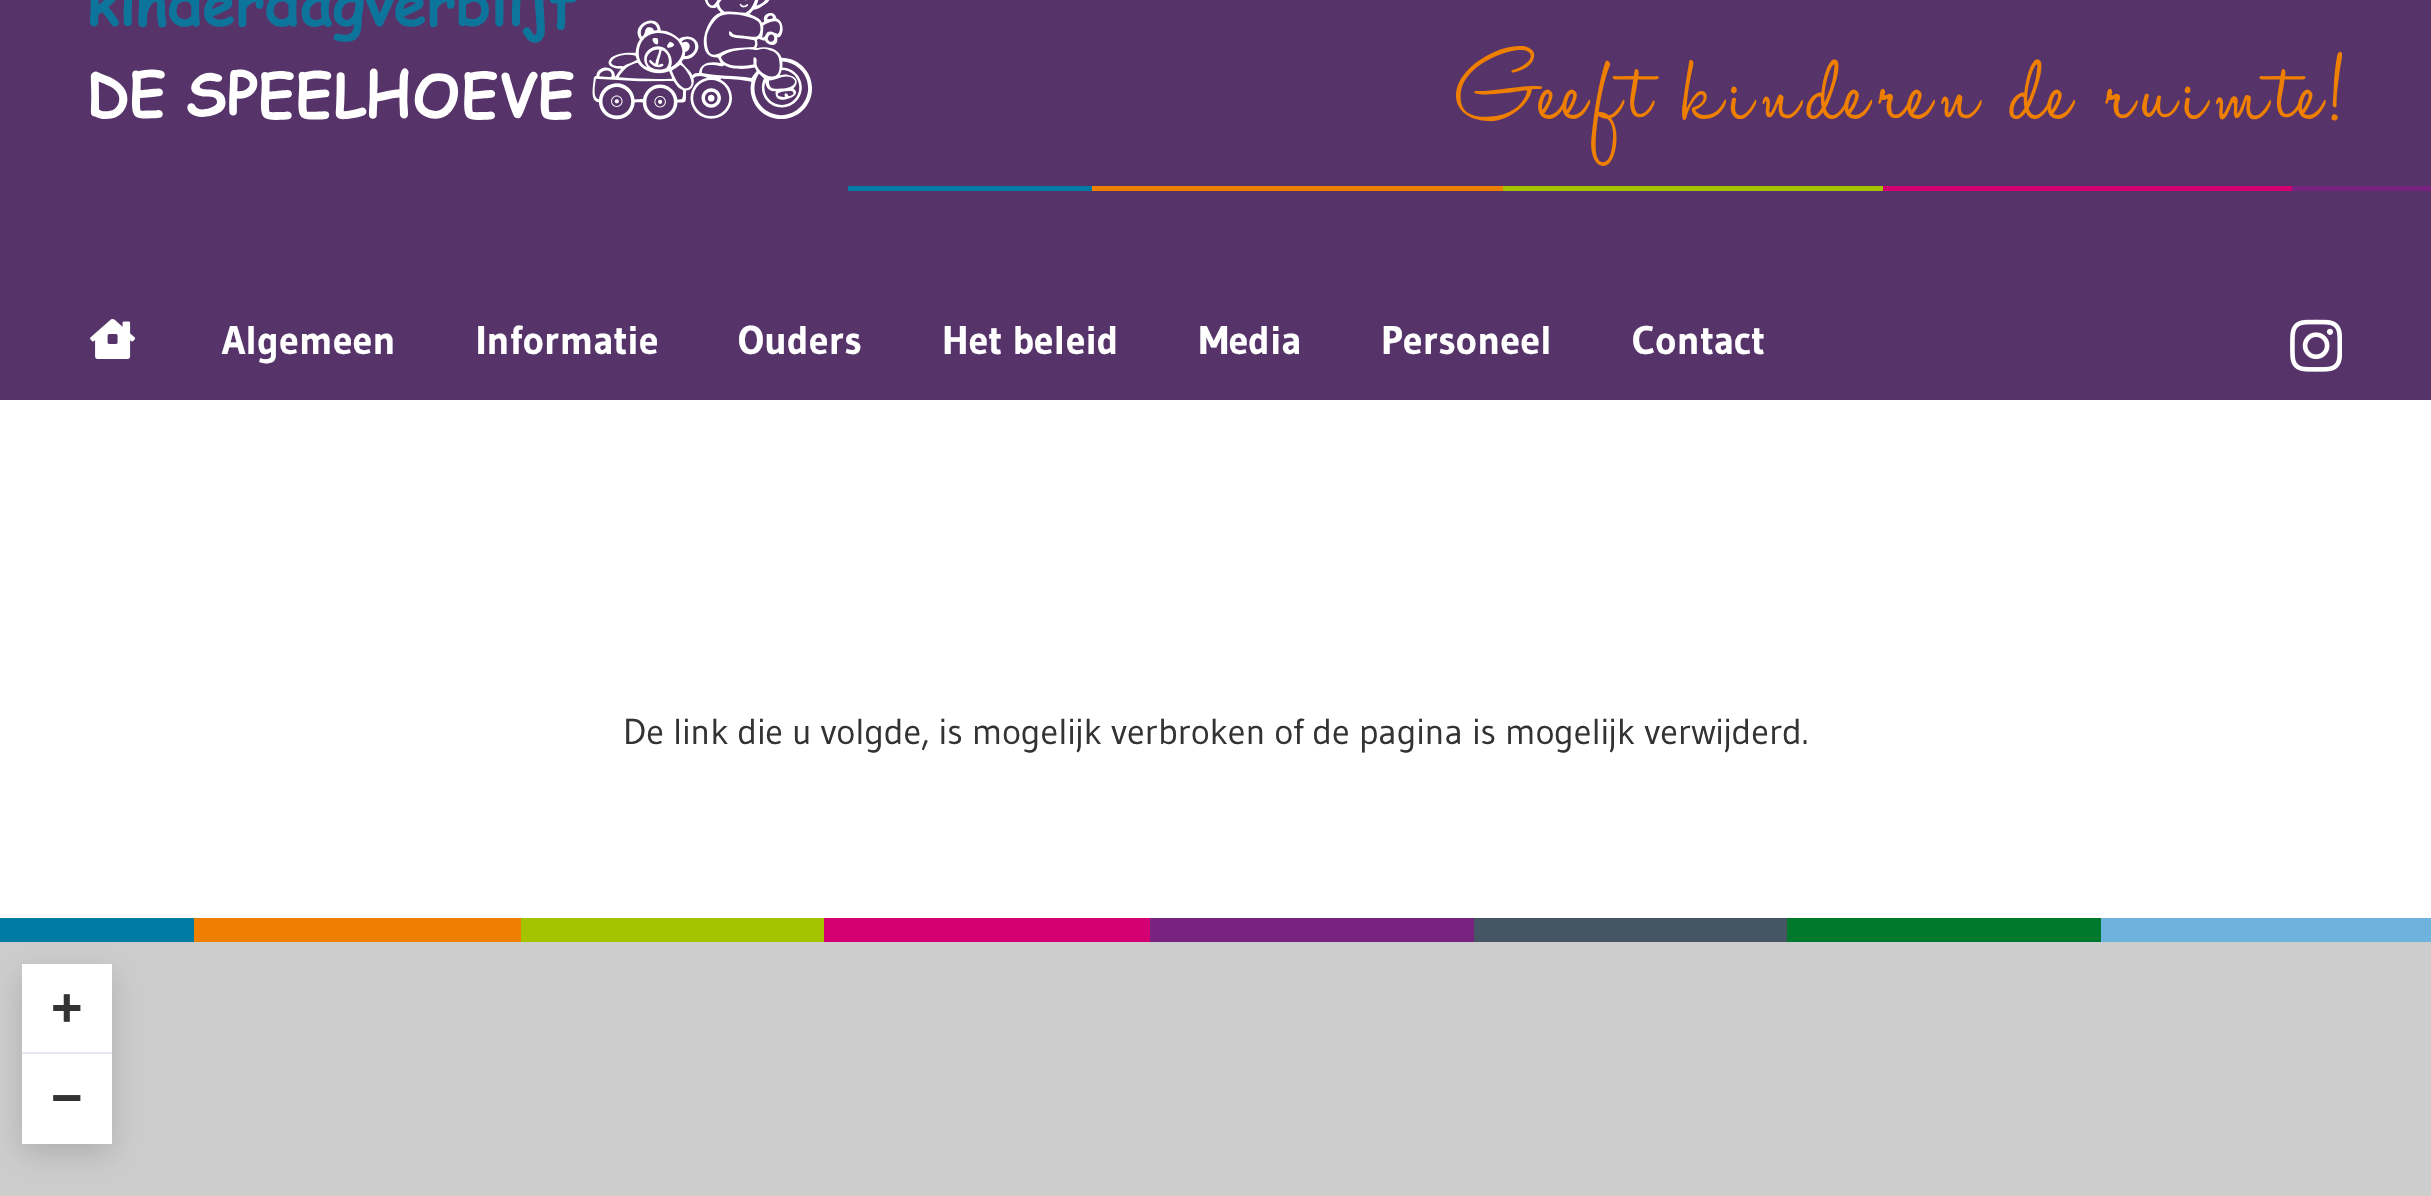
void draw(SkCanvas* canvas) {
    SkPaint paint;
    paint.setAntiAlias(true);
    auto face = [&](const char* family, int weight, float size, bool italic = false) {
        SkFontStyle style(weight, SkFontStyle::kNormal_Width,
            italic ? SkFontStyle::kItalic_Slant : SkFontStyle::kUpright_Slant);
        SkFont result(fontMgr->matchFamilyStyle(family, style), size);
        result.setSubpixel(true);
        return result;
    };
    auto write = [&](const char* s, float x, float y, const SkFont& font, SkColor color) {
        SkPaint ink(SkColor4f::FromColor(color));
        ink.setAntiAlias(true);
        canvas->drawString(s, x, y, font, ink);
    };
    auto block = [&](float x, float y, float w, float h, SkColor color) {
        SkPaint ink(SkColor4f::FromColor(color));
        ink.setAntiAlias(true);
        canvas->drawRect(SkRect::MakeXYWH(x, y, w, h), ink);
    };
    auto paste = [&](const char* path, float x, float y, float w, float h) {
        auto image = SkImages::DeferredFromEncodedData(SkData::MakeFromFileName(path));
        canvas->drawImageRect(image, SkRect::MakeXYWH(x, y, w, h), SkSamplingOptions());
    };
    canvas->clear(SK_ColorWHITE);
    block(0, 0, 2431, 400, SkColorSetRGB(86, 51, 105));
    paste("pic1.png", 90, 0, 722, 120);
    paste("pic2.png", 1456, 46, 886, 120);
    paint.setColor(SkColorSetRGB(0, 123, 165));
    canvas->drawPath(SkPathBuilder().moveTo(1005, 186).lineTo(848, 186).lineTo(848, 191).lineTo(1092, 191).lineTo(1092, 186).close().detach(), paint);
    block(1092, 186, 411, 5, SkColorSetRGB(238, 127, 0));
    block(1503, 186, 380, 5, SkColorSetRGB(165, 196, 0));
    block(1883, 186, 409, 5, SkColorSetRGB(212, 0, 114));
    block(2292, 186, 139, 5, SkColorSetRGB(119, 35, 127));
    paste("pic3.png", 90, 319, 46, 40);
    auto kFont1 = face("Gudea", 700, 40);
    write("Algemeen", 222, 354, kFont1, SK_ColorWHITE);
    write("Informatie", 476, 354, kFont1, SK_ColorWHITE);
    write("Ouders", 738, 354, kFont1, SK_ColorWHITE);
    write("Het beleid", 942, 354, kFont1, SK_ColorWHITE);
    write("Media", 1199, 354, kFont1, SK_ColorWHITE);
    write("Personeel", 1381, 354, kFont1, SK_ColorWHITE);
    write("Contact", 1632, 354, kFont1, SK_ColorWHITE);
    paste("pic4.png", 2290, 319, 52, 53);
    auto kFont2 = face("Gudea", 400, 36);
    write("De link die u volgde, is mogelijk verbroken of de pagina is mogelijk verwijderd.", 623, 744, kFont2, SkColorSetRGB(51, 51, 51));
    canvas->drawPath(SkPathBuilder().moveTo(125, 918).lineTo(0, 918).lineTo(0, 942).lineTo(194, 942).lineTo(194, 918).close().detach(), paint);
    block(194, 918, 327, 24, SkColorSetRGB(238, 127, 0));
    block(521, 918, 303, 24, SkColorSetRGB(165, 196, 0));
    block(824, 918, 326, 24, SkColorSetRGB(212, 0, 114));
    block(1150, 918, 324, 24, SkColorSetRGB(119, 35, 127));
    block(1474, 918, 313, 24, SkColorSetRGB(69, 85, 99));
    block(1787, 918, 314, 24, SkColorSetRGB(0, 121, 44));
    block(2101, 918, 330, 24, SkColorSetRGB(110, 179, 222));
    block(0, 942, 2431, 254, SkColorSetRGB(205, 205, 205));
    paint.setColor(SkColorSetARGB(38, 0, 0, 0));
    paint.setMaskFilter(SkMaskFilter::MakeBlur(kNormal_SkBlurStyle, 15));
    canvas->drawRect(SkRect::MakeXYWH(22, 974, 90, 180), paint);
    paint.setMaskFilter(nullptr);
    block(22, 964, 90, 88, SK_ColorWHITE);
    block(22, 1052, 90, 2, SkColorSetRGB(227, 231, 240));
    auto kFont3 = face("Liberation Sans", 700, 54);
    write("+", 51, 1026, kFont3, SkColorSetRGB(51, 51, 51));
    block(22, 1054, 90, 90, SK_ColorWHITE);
    write("−", 51, 1116, kFont3, SkColorSetRGB(51, 51, 51));
}
